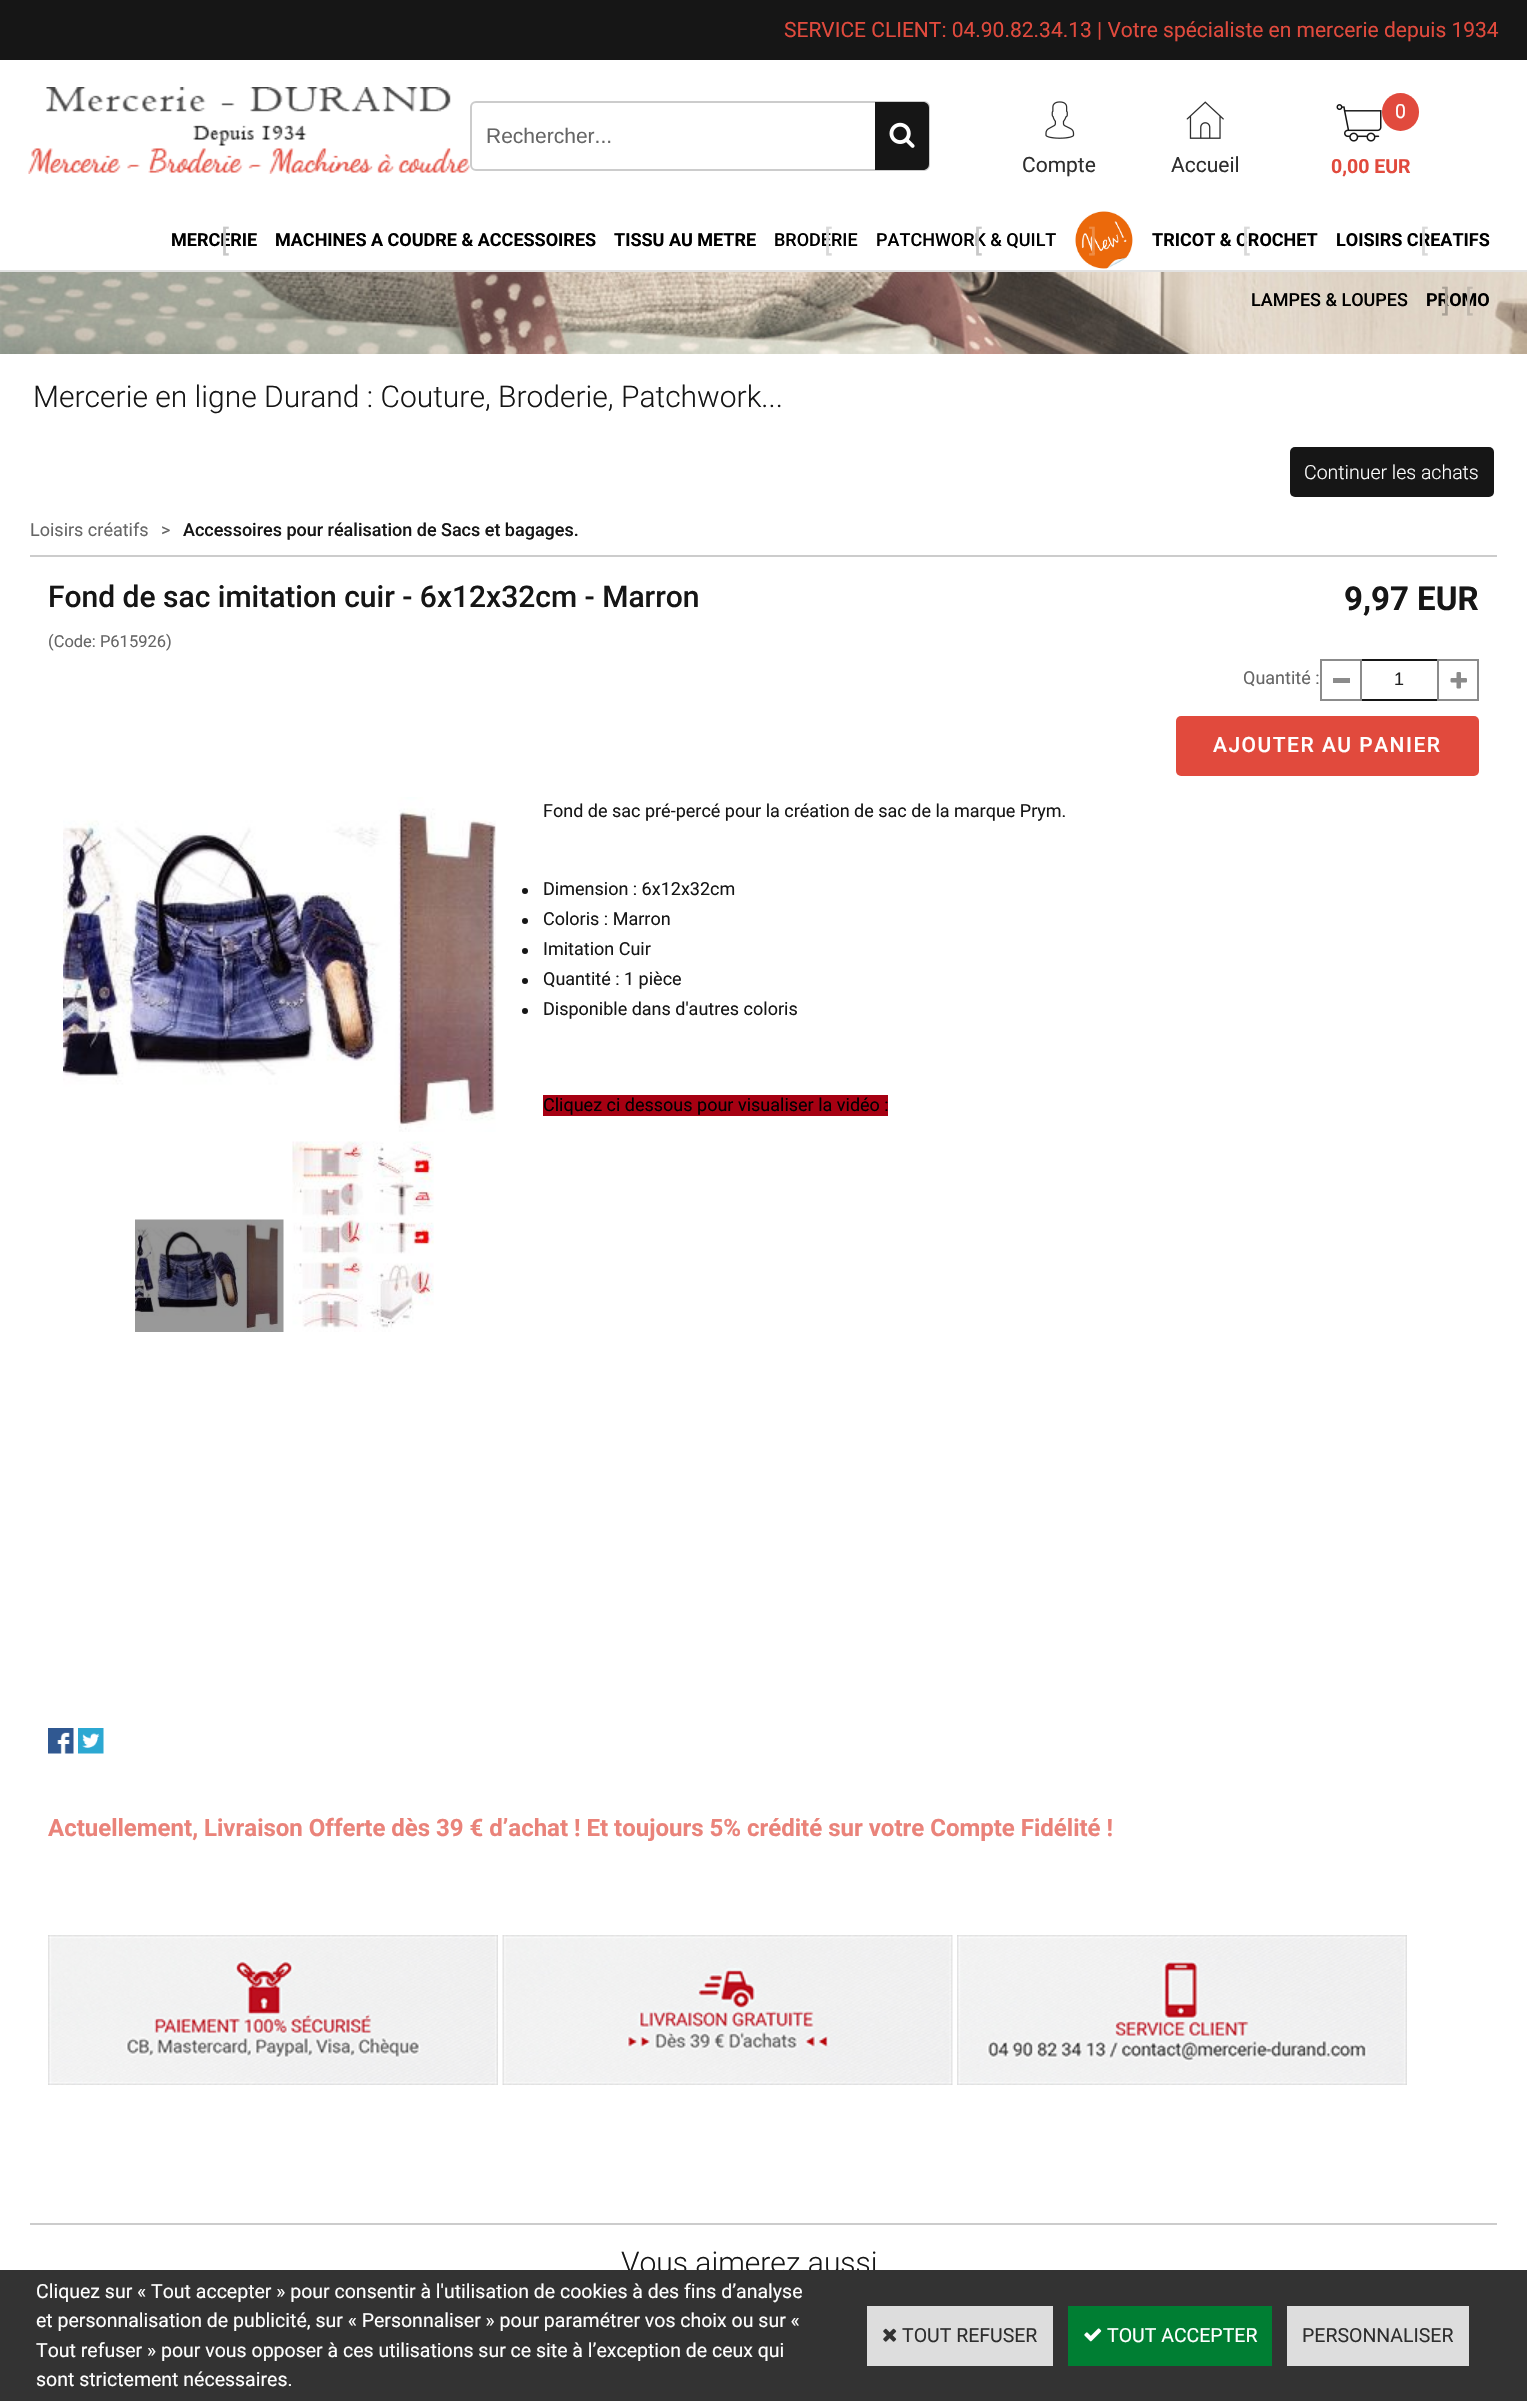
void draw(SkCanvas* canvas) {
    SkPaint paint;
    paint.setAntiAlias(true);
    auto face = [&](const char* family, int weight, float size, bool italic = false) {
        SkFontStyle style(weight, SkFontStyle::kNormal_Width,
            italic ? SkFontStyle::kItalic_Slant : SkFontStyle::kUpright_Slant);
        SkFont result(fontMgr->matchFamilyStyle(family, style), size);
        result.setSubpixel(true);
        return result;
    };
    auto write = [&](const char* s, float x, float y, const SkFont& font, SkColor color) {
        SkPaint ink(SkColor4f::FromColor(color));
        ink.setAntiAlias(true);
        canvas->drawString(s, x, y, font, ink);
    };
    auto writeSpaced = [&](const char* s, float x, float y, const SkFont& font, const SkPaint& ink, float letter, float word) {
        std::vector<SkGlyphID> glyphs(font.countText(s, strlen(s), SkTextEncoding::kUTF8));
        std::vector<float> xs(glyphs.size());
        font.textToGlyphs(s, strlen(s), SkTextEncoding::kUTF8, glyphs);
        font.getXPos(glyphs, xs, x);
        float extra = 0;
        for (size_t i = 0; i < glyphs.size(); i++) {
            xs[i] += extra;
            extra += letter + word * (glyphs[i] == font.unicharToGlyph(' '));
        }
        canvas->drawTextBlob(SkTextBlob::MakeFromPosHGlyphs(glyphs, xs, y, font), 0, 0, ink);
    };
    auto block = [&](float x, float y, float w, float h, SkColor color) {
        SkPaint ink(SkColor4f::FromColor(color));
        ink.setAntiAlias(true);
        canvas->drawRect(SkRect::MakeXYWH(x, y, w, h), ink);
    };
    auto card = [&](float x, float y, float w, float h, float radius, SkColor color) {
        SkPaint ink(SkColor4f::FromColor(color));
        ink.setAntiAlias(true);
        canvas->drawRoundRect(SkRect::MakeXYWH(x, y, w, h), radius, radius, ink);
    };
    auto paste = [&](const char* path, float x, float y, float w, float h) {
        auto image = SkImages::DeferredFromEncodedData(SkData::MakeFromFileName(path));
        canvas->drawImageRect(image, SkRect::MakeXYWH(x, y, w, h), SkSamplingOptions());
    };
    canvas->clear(SK_ColorWHITE);
    paste("pic1.png", 0, 272, 1527, 82);
    block(0, 0, 1527, 60, SkColorSetRGB(22, 22, 22));
    block(0, 270, 1527, 2, SkColorSetRGB(226, 226, 226));
    auto kFont1 = face("Roboto", 400, 21);
    write("SERVICE CLIENT: 04.90.82.34.13 | Votre spécialiste en mercerie depuis 1934", 784, 37, kFont1, SkColorSetRGB(225, 74, 61));
    paste("pic2.png", 28, 87, 442, 87);
    paint.setStyle(SkPaint::kStroke_Style);
    paint.setStrokeWidth(2);
    paint.setColor(SkColorSetRGB(204, 204, 204));
    canvas->drawRoundRect(SkRect::MakeXYWH(471, 102, 458, 68), 5, 5, paint);
    auto kFont2 = face("Liberation Sans", 400, 21);
    write("Rechercher...", 486, 143, kFont2, SkColorSetRGB(102, 102, 102));
    paint.setStyle(SkPaint::kFill_Style);
    paint.setColor(SkColorSetRGB(22, 22, 22));
    canvas->drawPath(SkPathBuilder().moveTo(875, 102).lineTo(923, 102).cubicTo(926.5f, 102, 929, 104.5f, 929, 108).lineTo(929, 164).cubicTo(929, 167.5f, 926.5f, 170, 923, 170).lineTo(875, 170).close().detach(), paint);
    paste("pic3.png", 889, 122, 26, 26);
    paste("pic4.png", 1045, 101, 30, 38);
    write("Compte", 1022, 172, kFont1, SkColorSetRGB(46, 46, 46));
    paste("pic5.png", 1186, 101, 38, 38);
    write("Accueil", 1171, 172, kFont1, SkColorSetRGB(46, 46, 46));
    paste("pic6.png", 1336, 104, 46, 38);
    card(1382, 93, 37, 38, 18.5f, SkColorSetRGB(225, 74, 61));
    auto kFont3 = face("Roboto", 400, 19.5f);
    write("0", 1395, 118, kFont3, SK_ColorWHITE);
    auto kFont4 = face("Roboto", 700, 19.5f);
    write("0,00 EUR", 1331, 173, kFont4, SkColorSetRGB(225, 74, 61));
    auto kFont5 = face("Roboto", 700, 18);
    write("MERCERIE", 171, 246, kFont5, SK_ColorBLACK);
    auto kFont6 = face("Roboto", 400, 30);
    write("[", 221, 251, kFont6, SkColorSetRGB(200, 200, 200));
    write("MACHINES A COUDRE & ACCESSOIRES", 275, 246, kFont5, SK_ColorBLACK);
    write("TISSU AU METRE", 614, 246, kFont5, SK_ColorBLACK);
    auto kFont7 = face("Roboto", 500, 18);
    write("BRODERIE", 774, 246, kFont7, SK_ColorBLACK);
    write("[", 824, 251, kFont6, SkColorSetRGB(217, 217, 217));
    write("PATCHWORK & QUILT", 876, 246, kFont7, SK_ColorBLACK);
    write("[", 974, 251, kFont6, SkColorSetRGB(200, 200, 200));
    paste("pic7.png", 1075, 211, 58, 58);
    write("]", 1089, 251, kFont6, SkColorSetRGB(239, 140, 68));
    write("TRICOT & CROCHET", 1152, 246, kFont5, SK_ColorBLACK);
    write("[", 1242, 251, kFont6, SkColorSetRGB(217, 217, 217));
    write("LOISIRS CREATIFS", 1336, 246, kFont5, SK_ColorBLACK);
    write("[", 1420, 251, kFont6, SkColorSetRGB(217, 217, 217));
    write("LAMPES & LOUPES", 1251, 306, kFont7, SK_ColorBLACK);
    write("PROMO", 1426, 306, kFont5, SK_ColorBLACK);
    write("]", 1442, 311, kFont6, SkColorSetRGB(168, 160, 149));
    write("[", 1465, 311, kFont6, SkColorSetRGB(192, 183, 172));
    auto kFont8 = face("Roboto", 300, 30);
    write("Mercerie en ligne Durand : Couture, Broderie, Patchwork...", 33, 407, kFont8, SkColorSetRGB(22, 22, 22));
    card(1290, 447, 204, 50, 5, SkColorSetRGB(22, 22, 22));
    auto kFont9 = face("Roboto", 300, 19.5f);
    write("Continuer les achats", 1304, 479, kFont9, SK_ColorWHITE);
    auto kFont10 = face("Roboto", 400, 18);
    write("Loisirs créatifs", 30, 536, kFont10, SkColorSetRGB(102, 102, 102));
    write(">", 161, 536, kFont10, SkColorSetRGB(102, 102, 102));
    write("Accessoires pour réalisation de Sacs et bagages.", 183, 536, kFont7, SkColorSetRGB(22, 22, 22));
    block(30, 555, 1467, 2, SkColorSetRGB(204, 204, 204));
    auto kFont11 = face("Roboto", 500, 30);
    write("Fond de sac imitation cuir - 6x12x32cm - Marron", 48, 607, kFont11, SkColorSetRGB(22, 22, 22));
    auto kFont12 = face("Roboto", 400, 16.5f);
    write("(Code: P615926)", 48, 647, kFont12, SkColorSetRGB(102, 102, 102));
    auto kFont13 = face("Roboto", 700, 33);
    write("9,97 EUR", 1344, 610, kFont13, SkColorSetRGB(22, 22, 22));
    write("Quantité :", 1243, 684, kFont10, SkColorSetRGB(102, 102, 102));
    paint.setStyle(SkPaint::kStroke_Style);
    paint.setColor(SkColorSetRGB(139, 139, 139));
    canvas->drawRect(SkRect::MakeXYWH(1321, 660, 40, 40), paint);
    block(1333, 678, 17, 5, SkColorSetRGB(139, 139, 139));
    block(1362, 659, 75, 2, SkColorSetRGB(22, 22, 22));
    block(1362, 699, 75, 2, SkColorSetRGB(22, 22, 22));
    auto kFont14 = face("Liberation Sans", 400, 18);
    write("1", 1394, 685, kFont14, SkColorSetRGB(33, 33, 33));
    canvas->drawRect(SkRect::MakeXYWH(1438, 660, 40, 40), paint);
    paste("pic8.png", 1450, 672, 17, 17);
    card(1176, 716, 303, 60, 5, SkColorSetRGB(225, 74, 61));
    auto kFont15 = face("Roboto", 500, 21);
    paint.setStyle(SkPaint::kFill_Style);
    paint.setColor(SK_ColorWHITE);
    writeSpaced("AJOUTER AU PANIER", 1213, 752, kFont15, paint, 1.5f, 0);
    paste("pic9.png", 63, 797, 433, 335);
    paste("pic10.png", 135, 1219, 149, 113);
    paste("pic11.png", 292, 1141, 142, 191);
    write("Fond de sac pré-percé pour la création de sac de la marque Prym.", 543, 817, kFont10, SkColorSetRGB(22, 22, 22));
    paint.setColor(SkColorSetRGB(22, 22, 22));
    canvas->drawCircle(525, 891, 3, paint);
    write("Dimension : 6x12x32cm", 543, 895, kFont10, SkColorSetRGB(22, 22, 22));
    canvas->drawCircle(525, 921, 3, paint);
    write("Coloris : Marron", 543, 925, kFont10, SkColorSetRGB(22, 22, 22));
    canvas->drawCircle(525, 951, 3, paint);
    write("Imitation Cuir", 543, 955, kFont10, SkColorSetRGB(22, 22, 22));
    canvas->drawCircle(525, 981, 3, paint);
    write("Quantité : 1 pièce", 543, 985, kFont10, SkColorSetRGB(22, 22, 22));
    canvas->drawCircle(525, 1011, 3, paint);
    write("Disponible dans d'autres coloris", 543, 1015, kFont10, SkColorSetRGB(22, 22, 22));
    block(543, 1095, 345, 21, SkColorSetRGB(166, 0, 18));
    write("Cliquez ci dessous pour visualiser la vidéo :", 543, 1111, kFont10, SK_ColorBLACK);
    paste("pic12.png", 48, 1728, 26, 26);
    paste("pic13.png", 78, 1728, 26, 26);
    auto kFont16 = face("Roboto", 700, 24);
    write("Actuellement, Livraison Offerte dès 39 € d’achat ! Et toujours 5% crédité sur votre Compte Fidélité !", 48, 1836, kFont16, SkColorSetRGB(234, 131, 122));
    paste("pic14.png", 48, 1935, 450, 150);
    paste("pic15.png", 502, 1935, 451, 150);
    paste("pic16.png", 957, 1935, 450, 150);
    block(30, 2223, 1467, 2, SkColorSetRGB(204, 204, 204));
    write("Vous aimerez aussi", 621, 2273, kFont8, SkColorSetRGB(22, 22, 22));
    block(0, 2270, 1527, 131, SkColorSetRGB(51, 51, 51));
    write("Cliquez sur « Tout accepter » pour consentir à l'utilisation de cookies à des fins d’analyse", 36, 2298, kFont3, SK_ColorWHITE);
    write("et personnalisation de publicité, sur « Personnaliser » pour paramétrer vos choix ou sur «", 36, 2327, kFont3, SK_ColorWHITE);
    write("Tout refuser » pour vous opposer à ces utilisations sur ce site à l’exception de ceux qui", 36, 2357, kFont3, SK_ColorWHITE);
    write("sont strictement nécessaires.", 36, 2386, kFont3, SK_ColorWHITE);
    block(867, 2306, 186, 60, SkColorSetRGB(221, 221, 221));
    paste("pic17.png", 883, 2328, 14, 14);
    write("TOUT REFUSER", 902, 2342, kFont3, SkColorSetRGB(46, 46, 46));
    block(1068, 2306, 204, 60, SkColorSetRGB(0, 126, 51));
    paste("pic18.png", 1084, 2328, 18, 14);
    write("TOUT ACCEPTER", 1107, 2342, kFont3, SK_ColorWHITE);
    block(1287, 2306, 182, 60, SkColorSetRGB(221, 221, 221));
    write("PERSONNALISER", 1302, 2342, kFont3, SkColorSetRGB(46, 46, 46));
}
